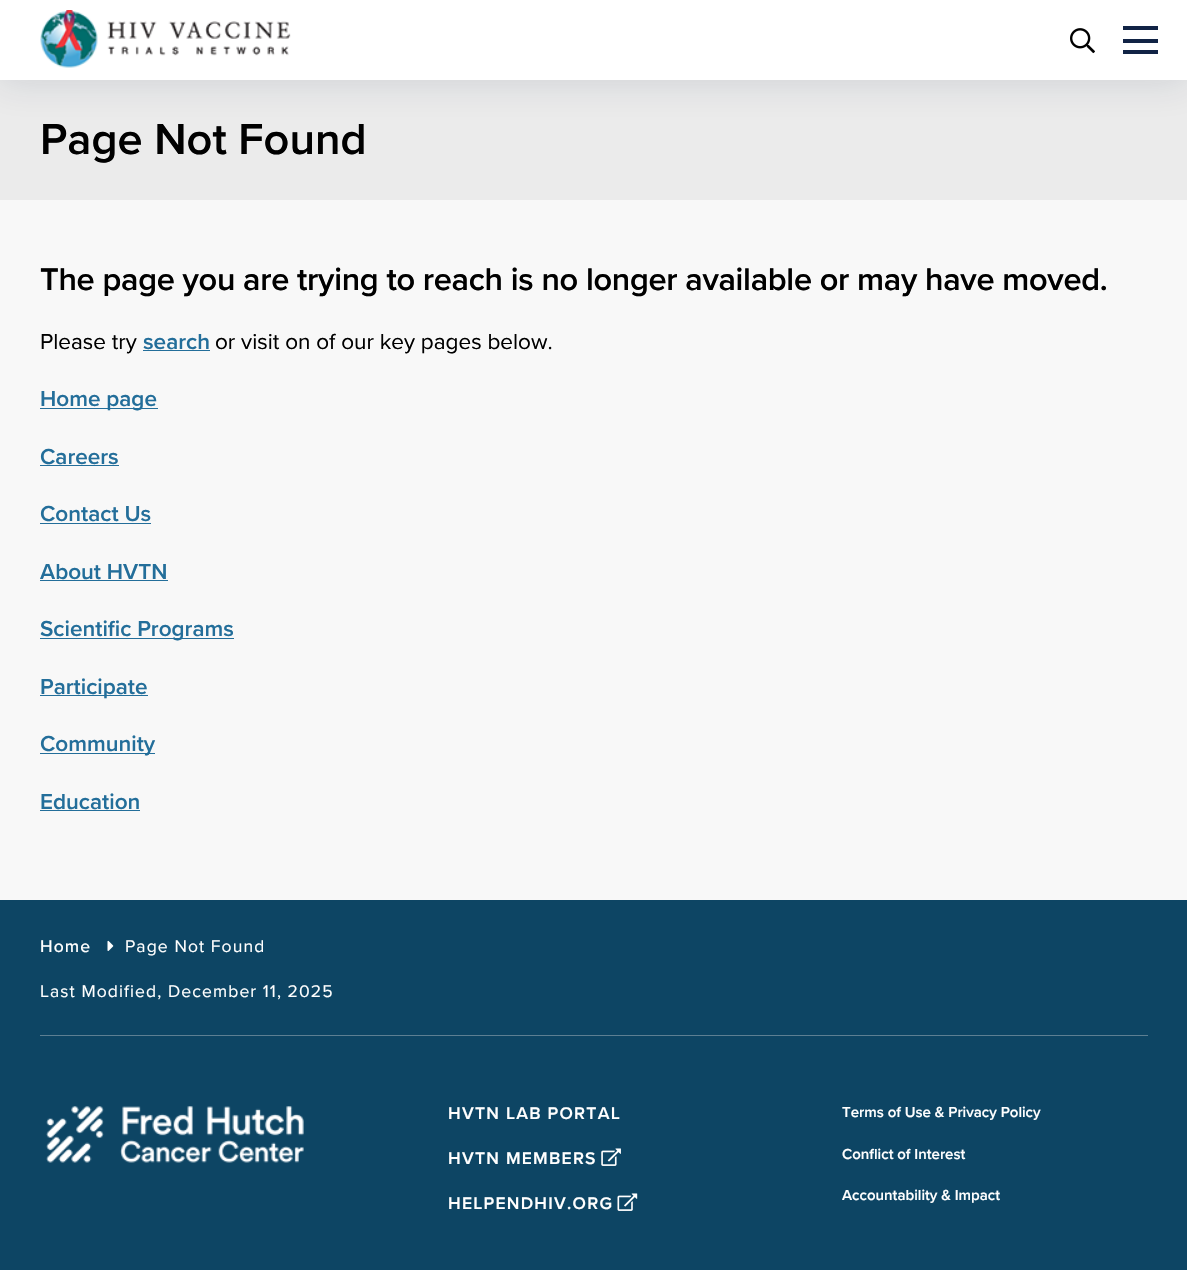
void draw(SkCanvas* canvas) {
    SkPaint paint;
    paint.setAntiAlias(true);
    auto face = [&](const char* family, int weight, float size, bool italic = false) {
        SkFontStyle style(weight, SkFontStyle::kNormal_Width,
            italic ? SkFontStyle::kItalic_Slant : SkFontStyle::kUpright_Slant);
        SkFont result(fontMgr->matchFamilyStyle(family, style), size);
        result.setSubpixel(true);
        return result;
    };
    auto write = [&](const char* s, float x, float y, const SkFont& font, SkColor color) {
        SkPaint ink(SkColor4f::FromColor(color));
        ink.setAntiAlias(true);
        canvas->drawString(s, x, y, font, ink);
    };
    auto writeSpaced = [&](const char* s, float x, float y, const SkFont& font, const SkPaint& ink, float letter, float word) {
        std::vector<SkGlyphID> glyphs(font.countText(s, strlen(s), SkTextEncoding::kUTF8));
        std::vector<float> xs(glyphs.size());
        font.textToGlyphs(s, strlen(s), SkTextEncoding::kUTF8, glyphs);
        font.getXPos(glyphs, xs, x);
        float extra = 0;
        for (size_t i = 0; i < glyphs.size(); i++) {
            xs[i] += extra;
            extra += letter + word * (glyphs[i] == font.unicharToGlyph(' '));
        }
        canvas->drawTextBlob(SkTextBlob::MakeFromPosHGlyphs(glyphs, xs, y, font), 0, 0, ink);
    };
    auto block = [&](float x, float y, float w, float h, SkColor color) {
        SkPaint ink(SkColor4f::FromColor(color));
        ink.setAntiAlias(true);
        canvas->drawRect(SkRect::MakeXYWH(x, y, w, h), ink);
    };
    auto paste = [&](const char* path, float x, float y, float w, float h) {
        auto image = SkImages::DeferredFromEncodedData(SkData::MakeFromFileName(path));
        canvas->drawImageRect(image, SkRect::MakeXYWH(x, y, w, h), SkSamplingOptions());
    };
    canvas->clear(SkColorSetRGB(248, 248, 248));
    block(0, 80, 1187, 120, SkColorSetRGB(235, 235, 235));
    paint.setColor(SkColorSetARGB(31, 17, 35, 69));
    paint.setMaskFilter(SkMaskFilter::MakeBlur(kNormal_SkBlurStyle, 19));
    canvas->drawRect(SkRect::MakeXYWH(-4, -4, 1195, 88), paint);
    paint.setMaskFilter(nullptr);
    block(0, 0, 1187, 80, SK_ColorWHITE);
    paste("pic1.png", 40, 10, 251, 58);
    paste("pic2.png", 1070, 28, 25, 26);
    block(1123, 26, 35, 4, SkColorSetRGB(17, 35, 69));
    block(1123, 39, 35, 4, SkColorSetRGB(17, 35, 69));
    block(1123, 50, 35, 4, SkColorSetRGB(17, 35, 69));
    auto kFont1 = face("Proxima Nova", 600, 45);
    write("Page Not Found", 40, 154, kFont1, SK_ColorBLACK);
    auto kFont2 = face("Proxima Nova", 600, 32.5f);
    paint.setColor(SK_ColorBLACK);
    writeSpaced("The page you are trying to reach is no longer available or may have moved.", 40, 290, kFont2, paint, -0.3f, 0);
    auto kFont3 = face("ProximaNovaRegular", 400, 22.5f);
    write("Please try", 40, 349, kFont3, SK_ColorBLACK);
    auto kFont4 = face("Proxima Nova", 600, 22.5f);
    write("search", 143, 349, kFont4, SkColorSetRGB(35, 110, 154));
    block(143, 350, 67, 1, SkColorSetRGB(35, 110, 154));
    write("or visit on of our key pages below.", 215, 349, kFont3, SK_ColorBLACK);
    block(40, 408, 118, 1, SkColorSetRGB(35, 110, 154));
    write("Home page", 40, 406, kFont4, SkColorSetRGB(35, 110, 154));
    write("Careers", 40, 464, kFont4, SkColorSetRGB(35, 110, 154));
    block(40, 465, 79, 1, SkColorSetRGB(35, 110, 154));
    write("Contact Us", 40, 521, kFont4, SkColorSetRGB(35, 110, 154));
    block(40, 523, 111, 1, SkColorSetRGB(35, 110, 154));
    write("About HVTN", 40, 579, kFont4, SkColorSetRGB(35, 110, 154));
    block(40, 580, 128, 1, SkColorSetRGB(35, 110, 154));
    block(40, 638, 194, 1, SkColorSetRGB(35, 110, 154));
    write("Scientific Programs", 40, 636, kFont4, SkColorSetRGB(35, 110, 154));
    block(40, 695, 108, 1, SkColorSetRGB(35, 110, 154));
    write("Participate", 40, 694, kFont4, SkColorSetRGB(35, 110, 154));
    block(40, 753, 115, 1, SkColorSetRGB(35, 110, 154));
    write("Community", 40, 751, kFont4, SkColorSetRGB(35, 110, 154));
    write("Education", 40, 809, kFont4, SkColorSetRGB(35, 110, 154));
    block(40, 810, 100, 1, SkColorSetRGB(35, 110, 154));
    block(0, 900, 1187, 370, SkColorSetRGB(13, 69, 100));
    auto kFont5 = face("Proxima Nova", 500, 17.5f);
    paint.setColor(SK_ColorWHITE);
    writeSpaced("Home", 40, 952, kFont5, paint, 1.1f, 0);
    paste("pic3.png", 107, 940, 7, 11);
    auto kFont6 = face("ProximaNovaRegular", 400, 17.5f);
    writeSpaced("Page Not Found", 125, 952, kFont6, paint, 1.1f, 0);
    block(40, 1035, 1108, 1, SkColorSetRGB(93, 127, 146));
    writeSpaced("Last Modified, December 11, 2025", 40, 997, kFont6, paint, 1.1f, 0);
    paste("pic4.png", 46, 1106, 258, 57);
    auto kFont7 = face("Proxima Nova", 600, 17.5f);
    writeSpaced("HVTN LAB PORTAL", 448, 1119, kFont7, paint, 1.25f, 0);
    writeSpaced("HVTN MEMBERS", 448, 1164, kFont7, paint, 1.25f, 0);
    paste("pic5.png", 601, 1148, 20, 18);
    writeSpaced("HELPENDHIV.ORG", 448, 1209, kFont7, paint, 1.25f, 0);
    paste("pic6.png", 617, 1193, 21, 18);
    auto kFont8 = face("Proxima Nova", 600, 15);
    write("Terms of Use & Privacy Policy", 842, 1117, kFont8, SK_ColorWHITE);
    write("Conflict of Interest", 842, 1159, kFont8, SK_ColorWHITE);
    write("Accountability & Impact", 842, 1200, kFont8, SK_ColorWHITE);
}
